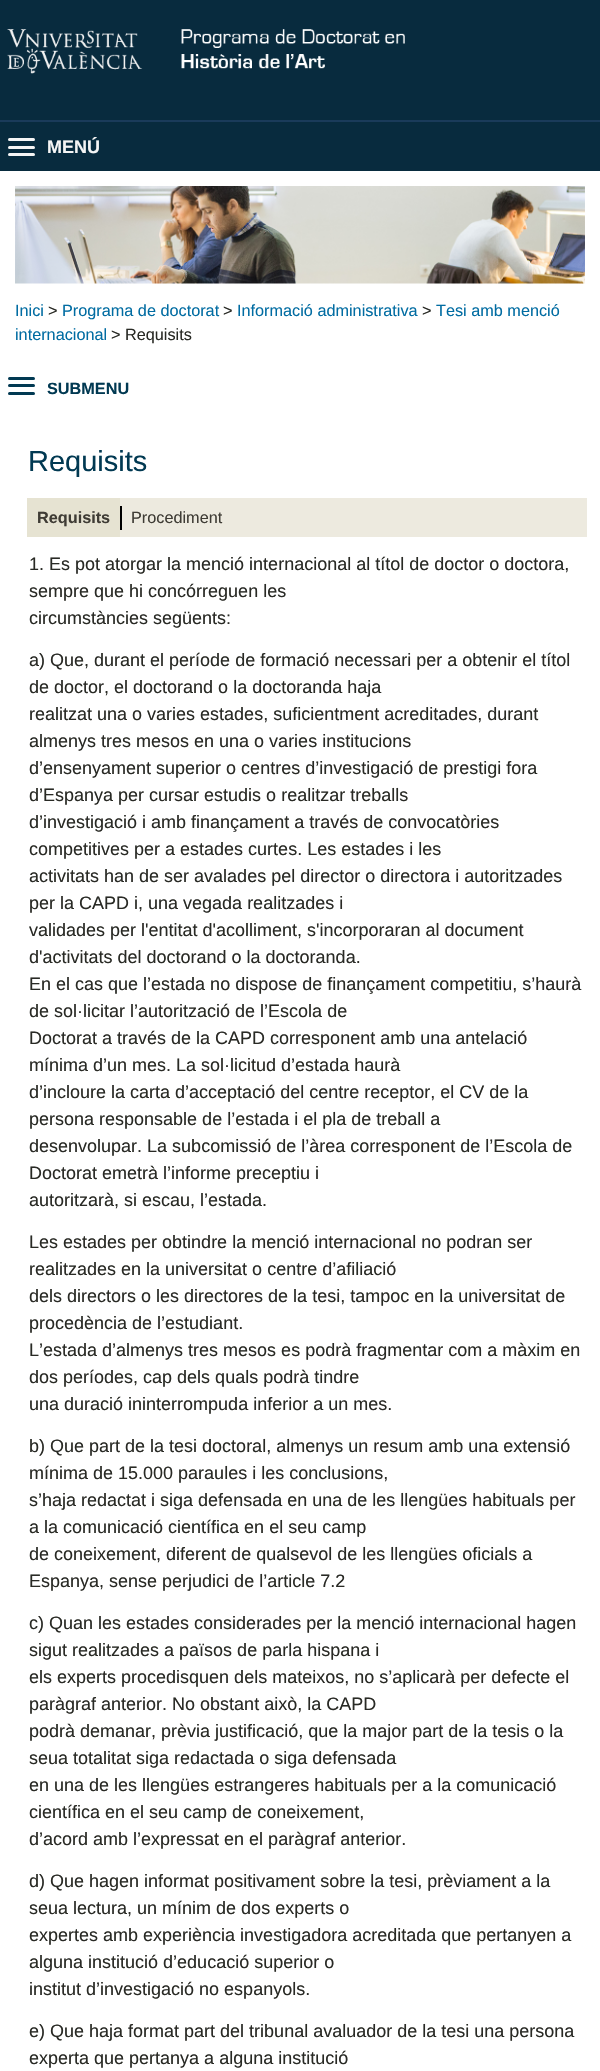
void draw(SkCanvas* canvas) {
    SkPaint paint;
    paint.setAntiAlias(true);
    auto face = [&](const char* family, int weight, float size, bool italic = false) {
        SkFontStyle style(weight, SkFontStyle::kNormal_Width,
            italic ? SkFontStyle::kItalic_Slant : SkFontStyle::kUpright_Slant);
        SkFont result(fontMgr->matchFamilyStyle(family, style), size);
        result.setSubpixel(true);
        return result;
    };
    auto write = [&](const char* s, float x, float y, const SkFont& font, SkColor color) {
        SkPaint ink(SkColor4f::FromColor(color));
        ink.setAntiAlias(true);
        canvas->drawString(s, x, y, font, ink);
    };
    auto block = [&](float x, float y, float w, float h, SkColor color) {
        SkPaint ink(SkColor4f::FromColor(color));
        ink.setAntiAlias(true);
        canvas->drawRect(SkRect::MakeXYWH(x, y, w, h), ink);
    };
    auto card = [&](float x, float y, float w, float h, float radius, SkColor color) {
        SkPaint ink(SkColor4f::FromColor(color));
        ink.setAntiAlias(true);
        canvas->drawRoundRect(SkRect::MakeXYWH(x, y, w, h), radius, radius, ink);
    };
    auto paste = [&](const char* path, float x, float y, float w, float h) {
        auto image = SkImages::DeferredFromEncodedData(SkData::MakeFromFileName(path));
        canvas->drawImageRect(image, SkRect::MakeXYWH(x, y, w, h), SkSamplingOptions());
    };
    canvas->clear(SK_ColorWHITE);
    block(0, 0, 600, 120, SkColorSetRGB(8, 43, 62));
    paste("pic1.png", 7, 29, 398, 45);
    block(0, 122, 600, 49, SkColorSetRGB(8, 43, 62));
    block(0, 120, 600, 2, SkColorSetRGB(26, 59, 90));
    card(8, 138, 27, 3, 1.5f, SkColorSetRGB(245, 245, 245));
    auto kFont1 = face("Liberation Sans", 700, 18);
    write("MENÚ", 47, 153, kFont1, SkColorSetRGB(245, 245, 245));
    card(8, 146, 27, 3, 1.5f, SkColorSetRGB(245, 245, 245));
    card(8, 153, 27, 3, 1.5f, SkColorSetRGB(245, 245, 245));
    paste("pic2.png", 15, 186, 570, 98);
    auto kFont2 = face("Liberation Sans", 400, 16.25f);
    write("Inici", 15, 316, kFont2, SkColorSetRGB(1, 108, 162));
    write(">", 48, 316, kFont2, SkColorSetRGB(41, 42, 37));
    write("Programa de doctorat", 62, 316, kFont2, SkColorSetRGB(1, 108, 162));
    write(">", 223, 316, kFont2, SkColorSetRGB(41, 42, 37));
    write("Informació administrativa", 237, 316, kFont2, SkColorSetRGB(1, 108, 162));
    write(">", 422, 316, kFont2, SkColorSetRGB(41, 42, 37));
    write("Tesi amb menció", 436, 316, kFont2, SkColorSetRGB(1, 108, 162));
    write("internacional", 15, 340, kFont2, SkColorSetRGB(1, 108, 162));
    write("> Requisits", 111, 340, kFont2, SkColorSetRGB(41, 42, 37));
    card(8, 377, 27, 3, 1.5f, SkColorSetRGB(1, 57, 82));
    card(8, 384, 27, 3, 1.5f, SkColorSetRGB(1, 57, 82));
    auto kFont3 = face("Liberation Sans", 700, 16.25f);
    write("SUBMENU", 47, 394, kFont3, SkColorSetRGB(1, 57, 82));
    card(8, 392, 27, 3, 1.5f, SkColorSetRGB(1, 57, 82));
    auto kFont4 = face("Liberation Sans", 400, 29);
    write("Requisits", 28, 471, kFont4, SkColorSetRGB(1, 57, 82));
    block(120, 498, 467, 39, SkColorSetRGB(237, 234, 223));
    block(27, 498, 93, 39, SkColorSetRGB(230, 227, 210));
    write("Requisits", 37, 523, kFont3, SkColorSetRGB(63, 60, 53));
    block(120, 506, 2, 24, SK_ColorBLACK);
    write("Procediment", 131, 523, kFont2, SkColorSetRGB(63, 60, 53));
    auto kFont5 = face("Liberation Sans", 400, 18);
    write("1. Es pot atorgar la menció internacional al títol de doctor o doctora,", 29, 570, kFont5, SkColorSetRGB(41, 42, 37));
    write("sempre que hi concórreguen les", 29, 597, kFont5, SkColorSetRGB(41, 42, 37));
    write("circumstàncies següents:", 29, 624, kFont5, SkColorSetRGB(41, 42, 37));
    write("a) Que, durant el període de formació necessari per a obtenir el títol", 29, 666, kFont5, SkColorSetRGB(41, 42, 37));
    write("de doctor, el doctorand o la doctoranda haja", 29, 693, kFont5, SkColorSetRGB(41, 42, 37));
    write("realitzat una o varies estades, suficientment acreditades, durant", 29, 720, kFont5, SkColorSetRGB(41, 42, 37));
    write("almenys tres mesos en una o varies institucions", 29, 747, kFont5, SkColorSetRGB(41, 42, 37));
    write("d’ensenyament superior o centres d’investigació de prestigi fora", 29, 774, kFont5, SkColorSetRGB(41, 42, 37));
    write("d’Espanya per cursar estudis o realitzar treballs", 29, 801, kFont5, SkColorSetRGB(41, 42, 37));
    write("d’investigació i amb finançament a través de convocatòries", 29, 828, kFont5, SkColorSetRGB(41, 42, 37));
    write("competitives per a estades curtes. Les estades i les", 29, 855, kFont5, SkColorSetRGB(41, 42, 37));
    write("activitats han de ser avalades pel director o directora i autoritzades", 29, 882, kFont5, SkColorSetRGB(41, 42, 37));
    write("per la CAPD i, una vegada realitzades i", 29, 909, kFont5, SkColorSetRGB(41, 42, 37));
    write("validades per l'entitat d'acolliment, s'incorporaran al document", 29, 936, kFont5, SkColorSetRGB(41, 42, 37));
    write("d'activitats del doctorand o la doctoranda.", 29, 963, kFont5, SkColorSetRGB(41, 42, 37));
    write("En el cas que l’estada no dispose de finançament competitiu, s’haurà", 29, 990, kFont5, SkColorSetRGB(41, 42, 37));
    write("de sol·licitar l’autorització de l’Escola de", 29, 1017, kFont5, SkColorSetRGB(41, 42, 37));
    write("Doctorat a través de la CAPD corresponent amb una antelació", 29, 1044, kFont5, SkColorSetRGB(41, 42, 37));
    write("mínima d’un mes. La sol·licitud d’estada haurà", 29, 1071, kFont5, SkColorSetRGB(41, 42, 37));
    write("d’incloure la carta d’acceptació del centre receptor, el CV de la", 29, 1098, kFont5, SkColorSetRGB(41, 42, 37));
    write("persona responsable de l’estada i el pla de treball a", 29, 1125, kFont5, SkColorSetRGB(41, 42, 37));
    write("desenvolupar. La subcomissió de l’àrea corresponent de l’Escola de", 29, 1152, kFont5, SkColorSetRGB(41, 42, 37));
    write("Doctorat emetrà l’informe preceptiu i", 29, 1179, kFont5, SkColorSetRGB(41, 42, 37));
    write("autoritzarà, si escau, l’estada.", 29, 1206, kFont5, SkColorSetRGB(41, 42, 37));
    write("Les estades per obtindre la menció internacional no podran ser", 29, 1248, kFont5, SkColorSetRGB(41, 42, 37));
    write("realitzades en la universitat o centre d’afiliació", 29, 1275, kFont5, SkColorSetRGB(41, 42, 37));
    write("dels directors o les directores de la tesi, tampoc en la universitat de", 29, 1302, kFont5, SkColorSetRGB(41, 42, 37));
    write("procedència de l’estudiant.", 29, 1329, kFont5, SkColorSetRGB(41, 42, 37));
    write("L’estada d’almenys tres mesos es podrà fragmentar com a màxim en", 29, 1356, kFont5, SkColorSetRGB(41, 42, 37));
    write("dos períodes, cap dels quals podrà tindre", 29, 1383, kFont5, SkColorSetRGB(41, 42, 37));
    write("una duració ininterrompuda inferior a un mes.", 29, 1410, kFont5, SkColorSetRGB(41, 42, 37));
    write("b) Que part de la tesi doctoral, almenys un resum amb una extensió", 29, 1452, kFont5, SkColorSetRGB(41, 42, 37));
    write("mínima de 15.000 paraules i les conclusions,", 29, 1479, kFont5, SkColorSetRGB(41, 42, 37));
    write("s’haja redactat i siga defensada en una de les llengües habituals per", 29, 1506, kFont5, SkColorSetRGB(41, 42, 37));
    write("a la comunicació científica en el seu camp", 29, 1533, kFont5, SkColorSetRGB(41, 42, 37));
    write("de coneixement, diferent de qualsevol de les llengües oficials a", 29, 1560, kFont5, SkColorSetRGB(41, 42, 37));
    write("Espanya, sense perjudici de l’article 7.2", 29, 1587, kFont5, SkColorSetRGB(41, 42, 37));
    write("c) Quan les estades considerades per la menció internacional hagen", 29, 1629, kFont5, SkColorSetRGB(41, 42, 37));
    write("sigut realitzades a països de parla hispana i", 29, 1656, kFont5, SkColorSetRGB(41, 42, 37));
    write("els experts procedisquen dels mateixos, no s’aplicarà per defecte el", 29, 1683, kFont5, SkColorSetRGB(41, 42, 37));
    write("paràgraf anterior. No obstant això, la CAPD", 29, 1710, kFont5, SkColorSetRGB(41, 42, 37));
    write("podrà demanar, prèvia justificació, que la major part de la tesis o la", 29, 1737, kFont5, SkColorSetRGB(41, 42, 37));
    write("seua totalitat siga redactada o siga defensada", 29, 1764, kFont5, SkColorSetRGB(41, 42, 37));
    write("en una de les llengües estrangeres habituals per a la comunicació", 29, 1791, kFont5, SkColorSetRGB(41, 42, 37));
    write("científica en el seu camp de coneixement,", 29, 1818, kFont5, SkColorSetRGB(41, 42, 37));
    write("d’acord amb l’expressat en el paràgraf anterior.", 29, 1845, kFont5, SkColorSetRGB(41, 42, 37));
    write("d) Que hagen informat positivament sobre la tesi, prèviament a la", 29, 1887, kFont5, SkColorSetRGB(41, 42, 37));
    write("seua lectura, un mínim de dos experts o", 29, 1914, kFont5, SkColorSetRGB(41, 42, 37));
    write("expertes amb experiència investigadora acreditada que pertanyen a", 29, 1941, kFont5, SkColorSetRGB(41, 42, 37));
    write("alguna institució d’educació superior o", 29, 1968, kFont5, SkColorSetRGB(41, 42, 37));
    write("institut d’investigació no espanyols.", 29, 1995, kFont5, SkColorSetRGB(41, 42, 37));
    write("e) Que haja format part del tribunal avaluador de la tesi una persona", 29, 2037, kFont5, SkColorSetRGB(41, 42, 37));
    write("experta que pertanya a alguna institució", 29, 2064, kFont5, SkColorSetRGB(41, 42, 37));
}
